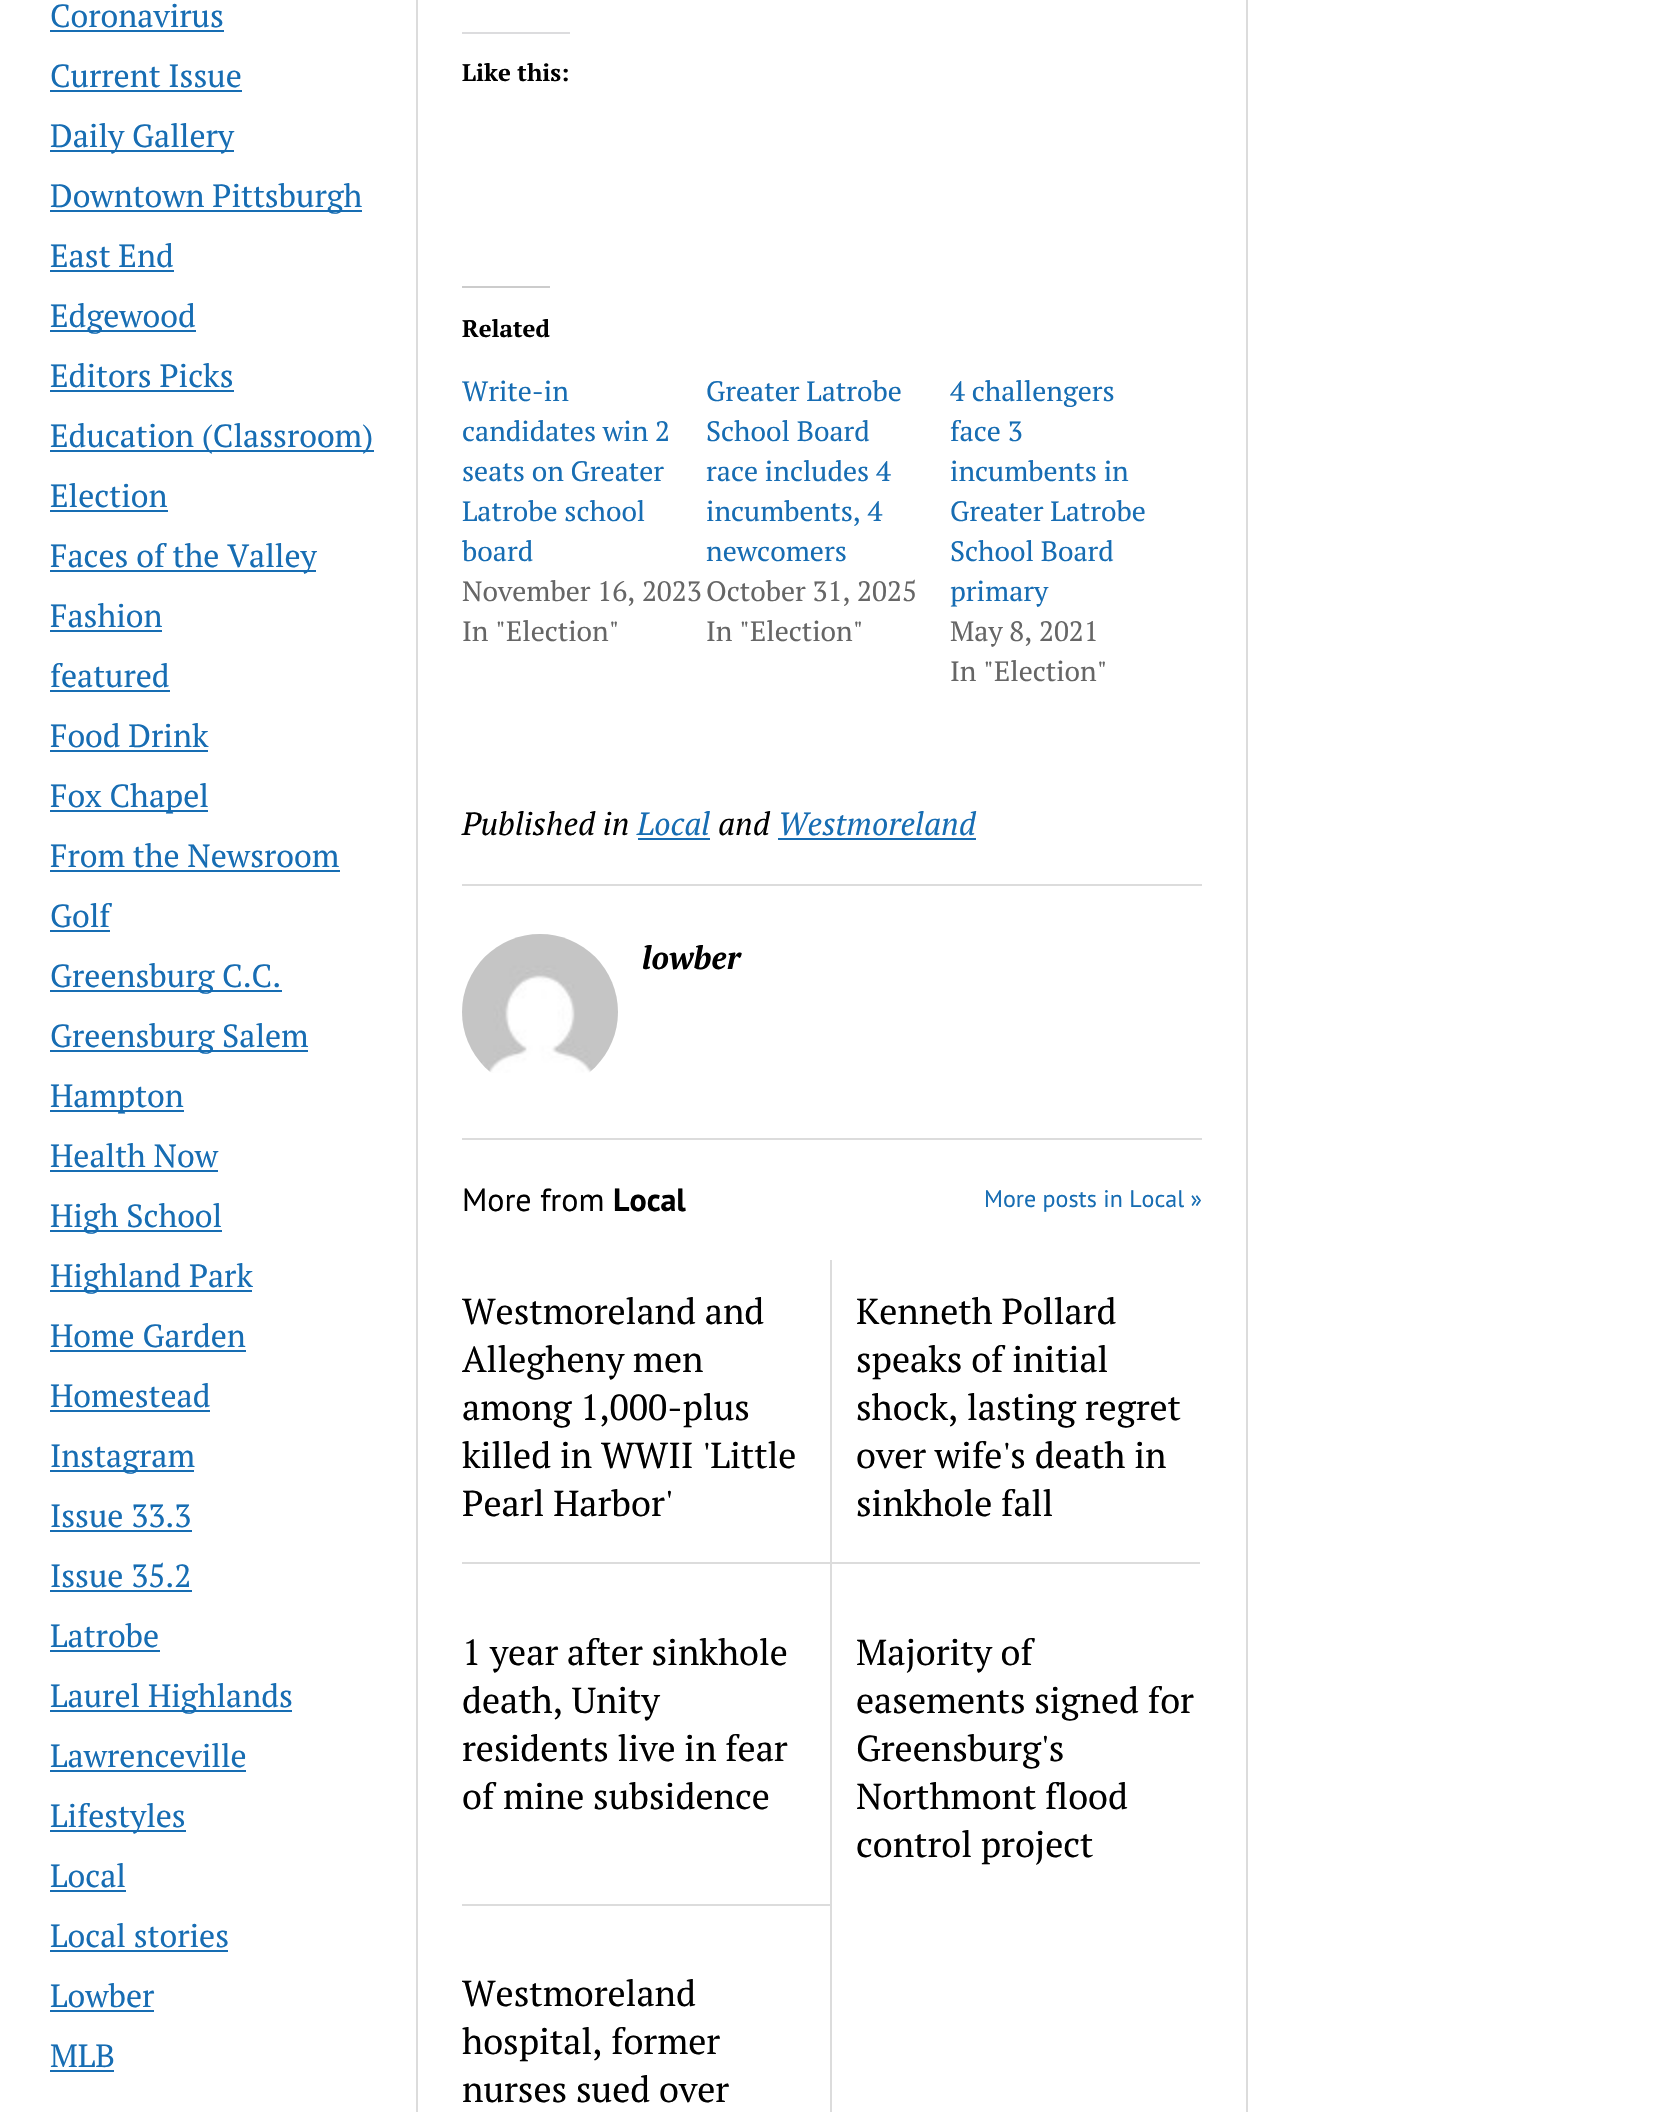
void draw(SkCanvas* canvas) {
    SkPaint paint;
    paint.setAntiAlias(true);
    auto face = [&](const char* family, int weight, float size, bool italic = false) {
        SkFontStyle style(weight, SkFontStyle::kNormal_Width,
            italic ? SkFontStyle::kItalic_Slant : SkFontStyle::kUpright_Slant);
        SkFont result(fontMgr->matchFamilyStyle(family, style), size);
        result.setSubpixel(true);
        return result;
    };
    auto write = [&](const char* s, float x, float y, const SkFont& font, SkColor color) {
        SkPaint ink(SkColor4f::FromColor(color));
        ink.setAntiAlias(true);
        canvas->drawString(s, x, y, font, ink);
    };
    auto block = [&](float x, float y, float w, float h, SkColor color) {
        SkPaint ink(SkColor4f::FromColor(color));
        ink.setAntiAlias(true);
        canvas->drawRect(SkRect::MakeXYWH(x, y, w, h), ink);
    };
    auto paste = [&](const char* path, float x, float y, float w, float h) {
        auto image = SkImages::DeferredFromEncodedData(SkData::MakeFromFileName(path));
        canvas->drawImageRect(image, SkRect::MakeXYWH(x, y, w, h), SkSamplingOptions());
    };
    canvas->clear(SK_ColorWHITE);
    block(416, 0, 2, 2112, SkColorSetRGB(220, 220, 220));
    block(1246, 0, 2, 2112, SkColorSetRGB(220, 220, 220));
    auto kFont1 = face("PT Serif", 400, 32);
    write("Coronavirus", 50, 27, kFont1, SkColorSetRGB(23, 109, 179));
    block(50, 30, 174, 2, SkColorSetRGB(23, 109, 179));
    write("Current Issue", 50, 87, kFont1, SkColorSetRGB(23, 109, 179));
    block(50, 90, 192, 2, SkColorSetRGB(23, 109, 179));
    block(50, 150, 184, 2, SkColorSetRGB(23, 109, 179));
    write("Daily Gallery", 50, 147, kFont1, SkColorSetRGB(23, 109, 179));
    block(50, 210, 312, 2, SkColorSetRGB(23, 109, 179));
    write("Downtown Pittsburgh", 50, 207, kFont1, SkColorSetRGB(23, 109, 179));
    write("East End", 50, 267, kFont1, SkColorSetRGB(23, 109, 179));
    block(50, 270, 124, 2, SkColorSetRGB(23, 109, 179));
    block(50, 330, 146, 2, SkColorSetRGB(23, 109, 179));
    write("Edgewood", 50, 327, kFont1, SkColorSetRGB(23, 109, 179));
    write("Editors Picks", 50, 387, kFont1, SkColorSetRGB(23, 109, 179));
    block(50, 390, 184, 2, SkColorSetRGB(23, 109, 179));
    block(50, 450, 324, 2, SkColorSetRGB(23, 109, 179));
    write("Education (Classroom)", 50, 447, kFont1, SkColorSetRGB(23, 109, 179));
    write("Election", 50, 507, kFont1, SkColorSetRGB(23, 109, 179));
    block(50, 510, 118, 2, SkColorSetRGB(23, 109, 179));
    block(50, 570, 266, 2, SkColorSetRGB(23, 109, 179));
    write("Faces of the Valley", 50, 567, kFont1, SkColorSetRGB(23, 109, 179));
    write("Fashion", 50, 627, kFont1, SkColorSetRGB(23, 109, 179));
    block(50, 630, 112, 2, SkColorSetRGB(23, 109, 179));
    write("featured", 50, 687, kFont1, SkColorSetRGB(23, 109, 179));
    block(50, 690, 120, 2, SkColorSetRGB(23, 109, 179));
    write("Food Drink", 50, 747, kFont1, SkColorSetRGB(23, 109, 179));
    block(50, 750, 158, 2, SkColorSetRGB(23, 109, 179));
    block(50, 810, 158, 2, SkColorSetRGB(23, 109, 179));
    write("Fox Chapel", 50, 807, kFont1, SkColorSetRGB(23, 109, 179));
    write("From the Newsroom", 50, 867, kFont1, SkColorSetRGB(23, 109, 179));
    block(50, 870, 290, 2, SkColorSetRGB(23, 109, 179));
    write("Golf", 50, 927, kFont1, SkColorSetRGB(23, 109, 179));
    block(50, 930, 60, 2, SkColorSetRGB(23, 109, 179));
    block(50, 990, 232, 2, SkColorSetRGB(23, 109, 179));
    write("Greensburg C.C.", 50, 987, kFont1, SkColorSetRGB(23, 109, 179));
    block(50, 1050, 258, 2, SkColorSetRGB(23, 109, 179));
    write("Greensburg Salem", 50, 1047, kFont1, SkColorSetRGB(23, 109, 179));
    block(50, 1110, 134, 2, SkColorSetRGB(23, 109, 179));
    write("Hampton", 50, 1107, kFont1, SkColorSetRGB(23, 109, 179));
    write("Health Now", 50, 1167, kFont1, SkColorSetRGB(23, 109, 179));
    block(50, 1170, 168, 2, SkColorSetRGB(23, 109, 179));
    block(50, 1230, 172, 2, SkColorSetRGB(23, 109, 179));
    write("High School", 50, 1227, kFont1, SkColorSetRGB(23, 109, 179));
    block(50, 1290, 202, 2, SkColorSetRGB(23, 109, 179));
    write("Highland Park", 50, 1287, kFont1, SkColorSetRGB(23, 109, 179));
    write("Home Garden", 50, 1347, kFont1, SkColorSetRGB(23, 109, 179));
    block(50, 1350, 196, 2, SkColorSetRGB(23, 109, 179));
    write("Homestead", 50, 1407, kFont1, SkColorSetRGB(23, 109, 179));
    block(50, 1410, 160, 2, SkColorSetRGB(23, 109, 179));
    block(50, 1470, 144, 2, SkColorSetRGB(23, 109, 179));
    write("Instagram", 50, 1467, kFont1, SkColorSetRGB(23, 109, 179));
    write("Issue 33.3", 50, 1527, kFont1, SkColorSetRGB(23, 109, 179));
    block(50, 1530, 142, 2, SkColorSetRGB(23, 109, 179));
    write("Issue 35.2", 50, 1587, kFont1, SkColorSetRGB(23, 109, 179));
    block(50, 1590, 142, 2, SkColorSetRGB(23, 109, 179));
    write("Latrobe", 50, 1647, kFont1, SkColorSetRGB(23, 109, 179));
    block(50, 1650, 110, 2, SkColorSetRGB(23, 109, 179));
    block(50, 1710, 242, 2, SkColorSetRGB(23, 109, 179));
    write("Laurel Highlands", 50, 1707, kFont1, SkColorSetRGB(23, 109, 179));
    write("Lawrenceville", 50, 1767, kFont1, SkColorSetRGB(23, 109, 179));
    block(50, 1770, 196, 2, SkColorSetRGB(23, 109, 179));
    block(50, 1830, 136, 2, SkColorSetRGB(23, 109, 179));
    write("Lifestyles", 50, 1827, kFont1, SkColorSetRGB(23, 109, 179));
    write("Local", 50, 1887, kFont1, SkColorSetRGB(23, 109, 179));
    block(50, 1890, 76, 2, SkColorSetRGB(23, 109, 179));
    write("Local stories", 50, 1947, kFont1, SkColorSetRGB(23, 109, 179));
    block(50, 1950, 178, 2, SkColorSetRGB(23, 109, 179));
    write("Lowber", 50, 2007, kFont1, SkColorSetRGB(23, 109, 179));
    block(50, 2010, 104, 2, SkColorSetRGB(23, 109, 179));
    write("MLB", 50, 2067, kFont1, SkColorSetRGB(23, 109, 179));
    block(50, 2070, 64, 2, SkColorSetRGB(23, 109, 179));
    block(462, 32, 108, 2, SkColorSetRGB(220, 220, 222));
    auto kFont2 = face("PT Serif", 700, 24);
    write("Like this:", 462, 81, kFont2, SK_ColorBLACK);
    block(462, 286, 88, 2, SkColorSetRGB(204, 204, 204));
    write("Related", 462, 337, kFont2, SK_ColorBLACK);
    auto kFont3 = face("PT Serif", 400, 28);
    write("Write-in", 462, 401, kFont3, SkColorSetRGB(23, 109, 179));
    write("candidates win 2", 462, 441, kFont3, SkColorSetRGB(23, 109, 179));
    write("seats on Greater", 462, 481, kFont3, SkColorSetRGB(23, 109, 179));
    write("Latrobe school", 462, 521, kFont3, SkColorSetRGB(23, 109, 179));
    write("board", 462, 561, kFont3, SkColorSetRGB(23, 109, 179));
    write("November 16, 2023", 462, 601, kFont3, SkColorSetRGB(102, 102, 102));
    write("In \"Election\"", 462, 641, kFont3, SkColorSetRGB(102, 102, 102));
    write("Greater Latrobe", 706, 401, kFont3, SkColorSetRGB(23, 109, 179));
    write("School Board", 706, 441, kFont3, SkColorSetRGB(23, 109, 179));
    write("race includes 4", 706, 481, kFont3, SkColorSetRGB(23, 109, 179));
    write("incumbents, 4", 706, 521, kFont3, SkColorSetRGB(23, 109, 179));
    write("newcomers", 706, 561, kFont3, SkColorSetRGB(23, 109, 179));
    write("October 31, 2025", 706, 601, kFont3, SkColorSetRGB(102, 102, 102));
    write("In \"Election\"", 706, 641, kFont3, SkColorSetRGB(102, 102, 102));
    write("4 challengers", 950, 401, kFont3, SkColorSetRGB(23, 109, 179));
    write("face 3", 950, 441, kFont3, SkColorSetRGB(23, 109, 179));
    write("incumbents in", 950, 481, kFont3, SkColorSetRGB(23, 109, 179));
    write("Greater Latrobe", 950, 521, kFont3, SkColorSetRGB(23, 109, 179));
    write("School Board", 950, 561, kFont3, SkColorSetRGB(23, 109, 179));
    write("primary", 950, 601, kFont3, SkColorSetRGB(23, 109, 179));
    write("May 8, 2021", 950, 641, kFont3, SkColorSetRGB(102, 102, 102));
    write("In \"Election\"", 950, 681, kFont3, SkColorSetRGB(102, 102, 102));
    block(462, 1138, 740, 2, SkColorSetRGB(220, 220, 220));
    auto kFont4 = face("PT Serif", 400, 32, true);
    write("Published in", 462, 835, kFont4, SK_ColorBLACK);
    write("Local", 637, 835, kFont4, SkColorSetRGB(23, 109, 179));
    block(638, 838, 72, 2, SkColorSetRGB(23, 109, 179));
    write("and", 718, 835, kFont4, SK_ColorBLACK);
    write("Westmoreland", 778, 835, kFont4, SkColorSetRGB(23, 109, 179));
    block(778, 838, 198, 2, SkColorSetRGB(23, 109, 179));
    block(462, 884, 740, 2, SkColorSetRGB(220, 220, 220));
    paste("pic1.png", 462, 934, 156, 139);
    auto kFont5 = face("PT Serif", 700, 32, true);
    write("lowber", 642, 969, kFont5, SK_ColorBLACK);
    auto kFont6 = face("PT Sans", 400, 32);
    write("More from", 462, 1211, kFont6, SK_ColorBLACK);
    auto kFont7 = face("PT Sans", 700, 32);
    write("Local", 613, 1211, kFont7, SK_ColorBLACK);
    auto kFont8 = face("PT Sans", 400, 24);
    write("More posts in Local »", 984, 1207, kFont8, SkColorSetRGB(23, 109, 179));
    block(830, 1260, 2, 302, SkColorSetRGB(220, 220, 220));
    auto kFont9 = face("PT Serif", 400, 36);
    write("Westmoreland and", 462, 1324, kFont9, SK_ColorBLACK);
    write("Allegheny men", 462, 1372, kFont9, SK_ColorBLACK);
    write("among 1,000-plus", 462, 1420, kFont9, SK_ColorBLACK);
    write("killed in WWII 'Little", 462, 1468, kFont9, SK_ColorBLACK);
    write("Pearl Harbor'", 462, 1516, kFont9, SK_ColorBLACK);
    write("Kenneth Pollard", 856, 1324, kFont9, SK_ColorBLACK);
    write("speaks of initial", 856, 1372, kFont9, SK_ColorBLACK);
    write("shock, lasting regret", 856, 1420, kFont9, SK_ColorBLACK);
    write("over wife's death in", 856, 1468, kFont9, SK_ColorBLACK);
    write("sinkhole fall", 856, 1516, kFont9, SK_ColorBLACK);
    block(462, 1562, 738, 2, SkColorSetRGB(220, 220, 220));
    write("1 year after sinkhole", 462, 1665, kFont9, SK_ColorBLACK);
    write("death, Unity", 462, 1713, kFont9, SK_ColorBLACK);
    write("residents live in fear", 462, 1761, kFont9, SK_ColorBLACK);
    write("of mine subsidence", 462, 1809, kFont9, SK_ColorBLACK);
    block(830, 1562, 2, 342, SkColorSetRGB(220, 220, 220));
    write("Majority of", 856, 1665, kFont9, SK_ColorBLACK);
    write("easements signed for", 856, 1713, kFont9, SK_ColorBLACK);
    write("Greensburg's", 856, 1761, kFont9, SK_ColorBLACK);
    write("Northmont flood", 856, 1809, kFont9, SK_ColorBLACK);
    write("control project", 856, 1857, kFont9, SK_ColorBLACK);
    block(462, 1904, 370, 2, SkColorSetRGB(220, 220, 220));
    block(830, 1904, 2, 208, SkColorSetRGB(220, 220, 220));
    write("Westmoreland", 462, 2006, kFont9, SK_ColorBLACK);
    write("hospital, former", 462, 2054, kFont9, SK_ColorBLACK);
    write("nurses sued over", 462, 2102, kFont9, SK_ColorBLACK);
}
